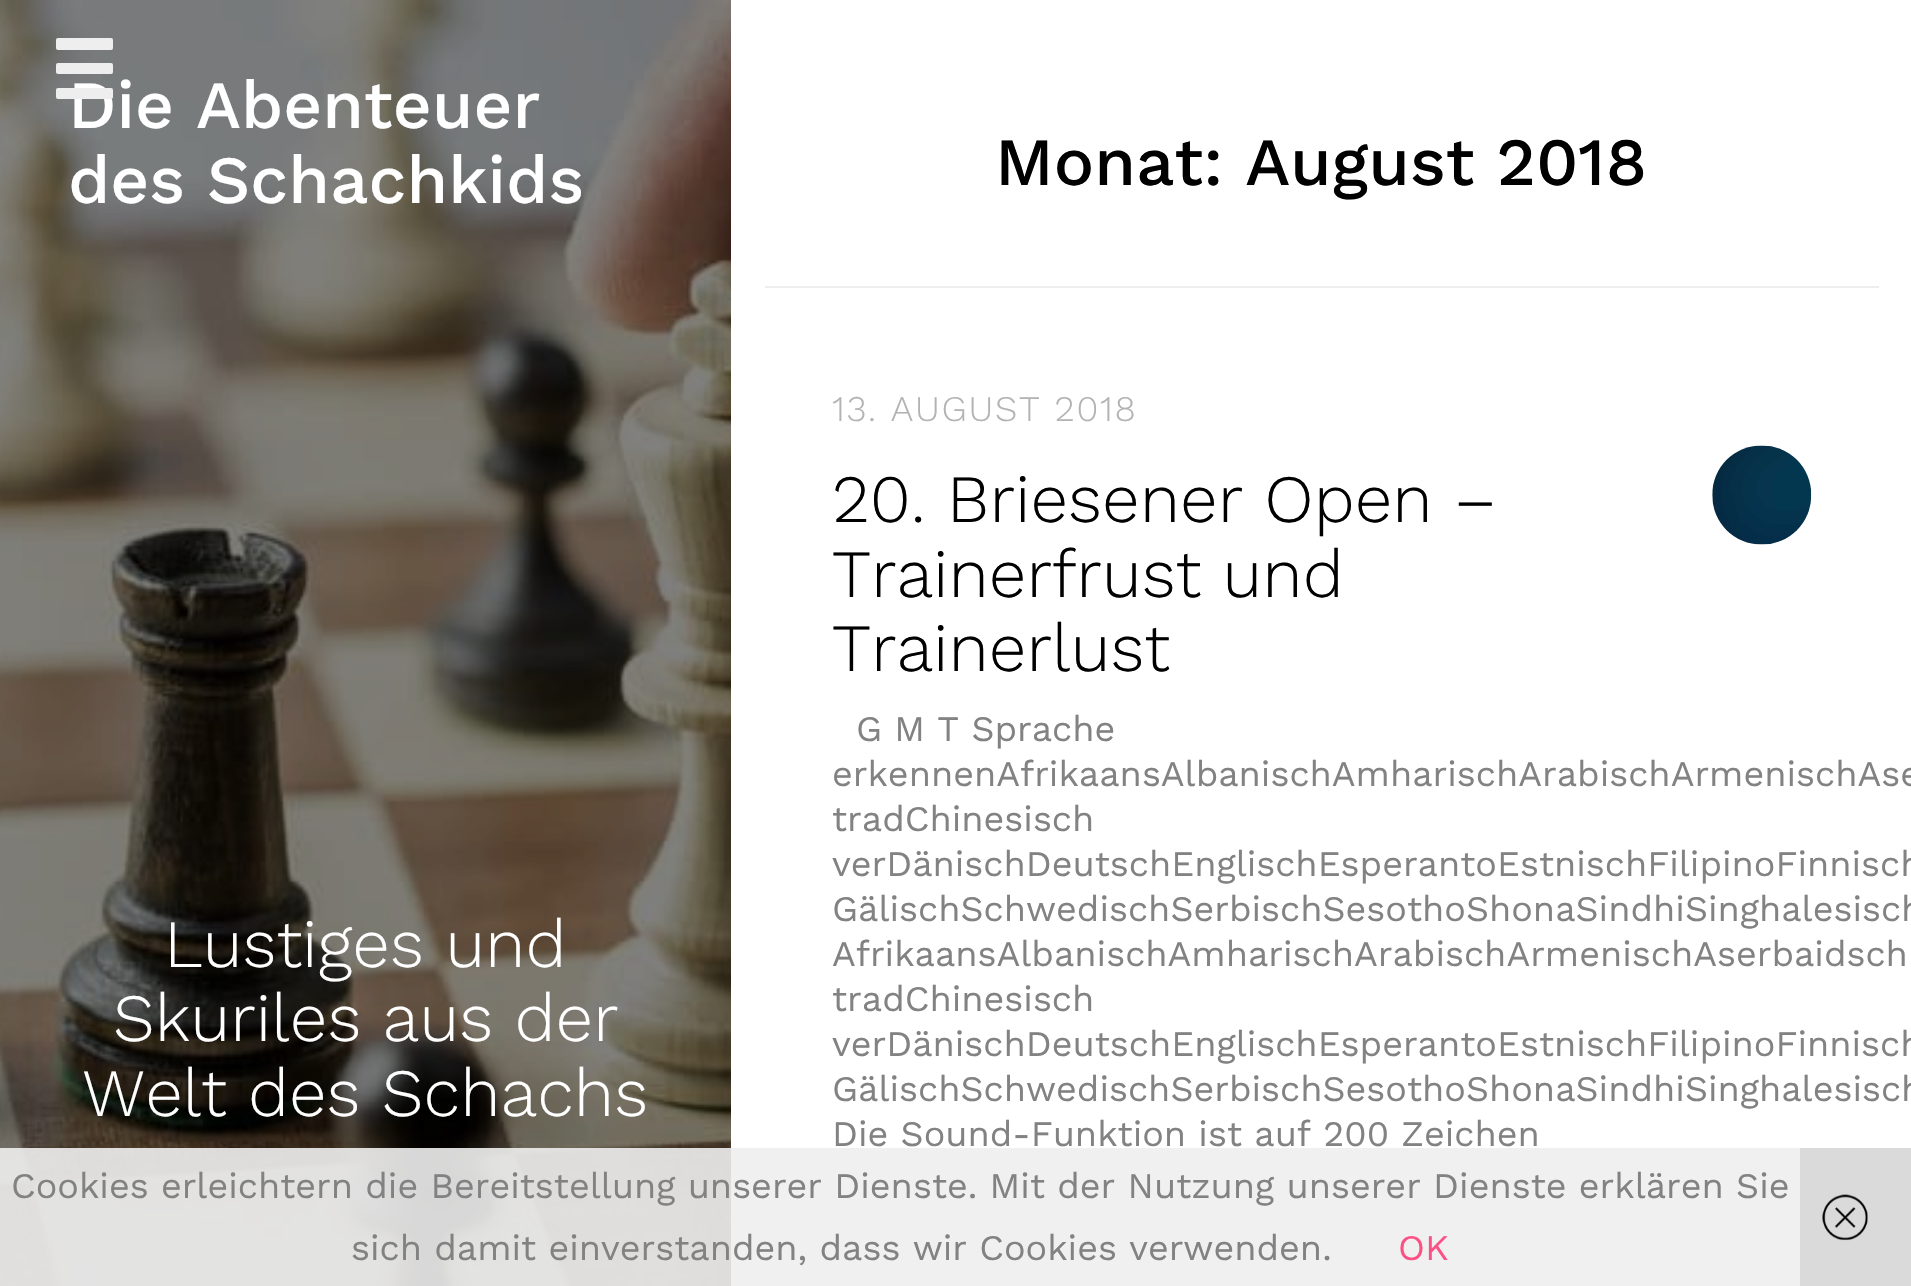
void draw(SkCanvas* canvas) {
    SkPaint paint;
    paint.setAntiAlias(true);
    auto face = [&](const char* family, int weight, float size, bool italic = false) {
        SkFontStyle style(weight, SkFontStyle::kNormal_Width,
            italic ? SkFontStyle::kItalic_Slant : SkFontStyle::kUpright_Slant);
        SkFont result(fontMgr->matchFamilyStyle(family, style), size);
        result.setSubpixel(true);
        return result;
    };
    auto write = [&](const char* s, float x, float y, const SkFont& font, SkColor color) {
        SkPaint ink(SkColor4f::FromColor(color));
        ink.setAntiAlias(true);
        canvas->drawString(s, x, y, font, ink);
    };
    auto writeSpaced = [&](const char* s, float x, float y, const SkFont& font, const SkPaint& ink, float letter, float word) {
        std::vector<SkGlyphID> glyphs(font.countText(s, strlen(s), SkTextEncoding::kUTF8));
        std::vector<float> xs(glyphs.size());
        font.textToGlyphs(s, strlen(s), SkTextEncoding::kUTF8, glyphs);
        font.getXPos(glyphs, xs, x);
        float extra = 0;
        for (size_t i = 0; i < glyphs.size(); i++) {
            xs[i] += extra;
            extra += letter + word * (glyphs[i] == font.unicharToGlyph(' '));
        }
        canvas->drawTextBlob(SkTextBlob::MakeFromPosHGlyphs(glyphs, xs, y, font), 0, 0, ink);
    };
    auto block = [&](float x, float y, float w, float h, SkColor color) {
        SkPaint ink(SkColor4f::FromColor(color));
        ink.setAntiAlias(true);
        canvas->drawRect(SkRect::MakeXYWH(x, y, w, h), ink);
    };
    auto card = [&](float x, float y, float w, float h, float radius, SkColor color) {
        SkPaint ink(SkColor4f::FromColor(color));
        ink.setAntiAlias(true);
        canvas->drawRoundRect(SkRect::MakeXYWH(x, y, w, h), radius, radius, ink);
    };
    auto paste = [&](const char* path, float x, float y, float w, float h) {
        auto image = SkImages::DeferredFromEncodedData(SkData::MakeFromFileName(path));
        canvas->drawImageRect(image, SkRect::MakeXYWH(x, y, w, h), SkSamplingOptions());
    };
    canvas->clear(SK_ColorWHITE);
    paste("pic1.png", 0, 0, 731, 1286);
    card(56, 63, 57, 11, 2, SkColorSetRGB(238, 238, 238));
    card(56, 38, 57, 12, 2, SkColorSetRGB(238, 238, 238));
    auto kFont1 = face("Work Sans", 500, 67.5f);
    write("Die Abenteuer", 68, 128, kFont1, SK_ColorWHITE);
    card(56, 88, 57, 11, 2, SkColorSetRGB(238, 238, 238));
    write("des Schachkids", 68, 203, kFont1, SK_ColorWHITE);
    auto kFont2 = face("Work Sans", 300, 67.5f);
    write("Lustiges und", 164, 967, kFont2, SK_ColorWHITE);
    write("Skuriles aus der", 113, 1041, kFont2, SK_ColorWHITE);
    write("Welt des Schachs", 82, 1116, kFont2, SK_ColorWHITE);
    block(765, 286, 1114, 2, SkColorSetRGB(238, 238, 238));
    write("Monat: August 2018", 995, 185, kFont1, SK_ColorBLACK);
    auto kFont3 = face("Work Sans", 300, 36);
    paint.setColor(SkColorSetRGB(179, 179, 179));
    writeSpaced("13. AUGUST 2018", 832, 421, kFont3, paint, 1.75f, 0);
    write("20. Briesener Open –", 832, 522, kFont2, SK_ColorBLACK);
    write("Trainerfrust und", 832, 597, kFont2, SK_ColorBLACK);
    write("Trainerlust", 832, 671, kFont2, SK_ColorBLACK);
    auto kFont4 = face("Work Sans", 400, 36);
    write("G M T Sprache", 856, 741, kFont4, SkColorSetRGB(130, 130, 130));
    write("erkennenAfrikaansAlbanischAmharischArabischArmenischAse", 832, 786, kFont4, SkColorSetRGB(130, 130, 130));
    write("tradChinesisch", 832, 831, kFont4, SkColorSetRGB(130, 130, 130));
    write("verDänischDeutschEnglischEsperantoEstnischFilipinoFinnisch", 832, 876, kFont4, SkColorSetRGB(130, 130, 130));
    write("GälischSchwedischSerbischSesothoShonaSindhiSinghalesisch", 832, 921, kFont4, SkColorSetRGB(130, 130, 130));
    write("AfrikaansAlbanischAmharischArabischArmenischAserbaidsch", 832, 966, kFont4, SkColorSetRGB(130, 130, 130));
    write("tradChinesisch", 832, 1011, kFont4, SkColorSetRGB(130, 130, 130));
    write("verDänischDeutschEnglischEsperantoEstnischFilipinoFinnisch", 832, 1056, kFont4, SkColorSetRGB(130, 130, 130));
    write("GälischSchwedischSerbischSesothoShonaSindhiSinghalesisch", 832, 1101, kFont4, SkColorSetRGB(130, 130, 130));
    write("Die Sound-Funktion ist auf 200 Zeichen", 832, 1146, kFont4, SkColorSetRGB(130, 130, 130));
    paste("pic2.png", 1712, 445, 100, 100);
    block(0, 1148, 1800, 138, SkColorSetARGB(230, 238, 238, 238));
    write("Cookies erleichtern die Bereitstellung unserer Dienste. Mit der Nutzung unserer Dienste erklären Sie", 11, 1198, kFont4, SkColorSetRGB(130, 130, 130));
    write("sich damit einverstanden, dass wir Cookies verwenden.", 351, 1260, kFont4, SkColorSetRGB(130, 130, 130));
    write("OK", 1398, 1260, kFont4, SkColorSetRGB(252, 81, 133));
    block(1800, 1148, 111, 138, SkColorSetRGB(218, 218, 218));
    paste("pic3.png", 1822, 1194, 46, 47);
}
